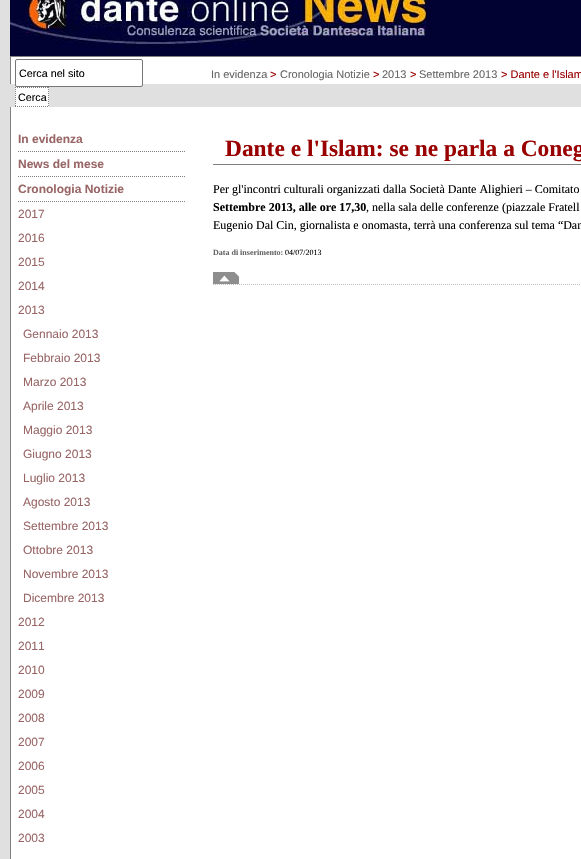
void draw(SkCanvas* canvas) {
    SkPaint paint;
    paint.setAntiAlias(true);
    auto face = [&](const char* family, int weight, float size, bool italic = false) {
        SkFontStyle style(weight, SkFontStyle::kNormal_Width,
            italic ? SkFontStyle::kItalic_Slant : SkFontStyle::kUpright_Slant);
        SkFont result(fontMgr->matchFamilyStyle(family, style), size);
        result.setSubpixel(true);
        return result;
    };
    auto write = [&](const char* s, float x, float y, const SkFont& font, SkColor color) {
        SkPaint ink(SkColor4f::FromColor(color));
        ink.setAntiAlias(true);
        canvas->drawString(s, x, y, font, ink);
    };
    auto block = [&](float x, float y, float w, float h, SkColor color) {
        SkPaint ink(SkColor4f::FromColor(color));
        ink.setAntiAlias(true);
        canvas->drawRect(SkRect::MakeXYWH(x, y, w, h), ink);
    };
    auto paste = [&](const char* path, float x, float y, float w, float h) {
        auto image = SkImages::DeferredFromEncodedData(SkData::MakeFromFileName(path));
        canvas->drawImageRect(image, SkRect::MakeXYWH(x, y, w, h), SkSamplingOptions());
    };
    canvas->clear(SkColorSetRGB(224, 224, 224));
    paste("pic1.png", 10, 0, 571, 56);
    block(11, 57, 570, 27, SK_ColorWHITE);
    block(10, 56, 571, 1, SkColorSetRGB(128, 128, 128));
    block(10, 56, 1, 28, SkColorSetRGB(128, 128, 128));
    paint.setColor(SK_ColorWHITE);
    canvas->drawRoundRect(SkRect::MakeXYWH(15.5f, 59.5f, 127, 27), 1.5f, 1.5f, paint);
    paint.setStyle(SkPaint::kStroke_Style);
    paint.setStrokeWidth(1);
    paint.setColor(SkColorSetRGB(118, 118, 118));
    canvas->drawRoundRect(SkRect::MakeXYWH(15.5f, 59.5f, 127, 27), 1.5f, 1.5f, paint);
    auto kFont1 = face("Liberation Sans", 400, 10.75f);
    write("Cerca nel sito", 19, 77, kFont1, SK_ColorBLACK);
    block(15, 87, 34, 20, SK_ColorWHITE);
    paint.setColor(SkColorSetRGB(128, 128, 128));
    paint.setPathEffect(SkDashPathEffect::Make({{1, 1}}, 0));
    canvas->drawPath(SkPathBuilder().moveTo(15, 87.5f).lineTo(49, 87.5f).moveTo(48.5f, 87).lineTo(48.5f, 107).moveTo(15, 106.5f).lineTo(49, 106.5f).moveTo(15.5f, 87).lineTo(15.5f, 107).detach(), paint);
    paint.setPathEffect(nullptr);
    write("Cerca", 18, 101, kFont1, SK_ColorBLACK);
    auto kFont2 = face("Liberation Sans", 400, 11);
    write("In evidenza", 211, 78, kFont2, SkColorSetRGB(102, 102, 102));
    write(">", 270, 78, kFont2, SkColorSetRGB(153, 0, 0));
    write("Cronologia Notizie", 280, 78, kFont2, SkColorSetRGB(102, 102, 102));
    write(">", 373, 78, kFont2, SkColorSetRGB(153, 0, 0));
    write("2013", 382, 78, kFont2, SkColorSetRGB(102, 102, 102));
    write(">", 410, 78, kFont2, SkColorSetRGB(153, 0, 0));
    write("Settembre 2013", 419, 78, kFont2, SkColorSetRGB(102, 102, 102));
    write("> Dante e l'Islam", 501, 78, kFont2, SkColorSetRGB(153, 0, 0));
    block(11, 107, 570, 752, SK_ColorWHITE);
    block(10, 107, 1, 752, SkColorSetRGB(128, 128, 128));
    paint.setPathEffect(SkDashPathEffect::Make({{1, 1}}, 0));
    canvas->drawPath(SkPathBuilder().moveTo(18, 151.5f).lineTo(185, 151.5f).detach(), paint);
    paint.setPathEffect(nullptr);
    auto kFont3 = face("Liberation Sans", 700, 12);
    write("In evidenza", 18, 143, kFont3, SkColorSetRGB(153, 102, 102));
    paint.setPathEffect(SkDashPathEffect::Make({{1, 1}}, 0));
    canvas->drawPath(SkPathBuilder().moveTo(18, 176.5f).lineTo(185, 176.5f).detach(), paint);
    paint.setPathEffect(nullptr);
    write("News del mese", 18, 168, kFont3, SkColorSetRGB(153, 102, 102));
    paint.setPathEffect(SkDashPathEffect::Make({{1, 1}}, 0));
    canvas->drawPath(SkPathBuilder().moveTo(18, 201.5f).lineTo(185, 201.5f).detach(), paint);
    paint.setPathEffect(nullptr);
    write("Cronologia Notizie", 18, 193, kFont3, SkColorSetRGB(153, 102, 102));
    auto kFont4 = face("Liberation Sans", 400, 12);
    write("2017", 18, 218, kFont4, SkColorSetRGB(153, 102, 102));
    write("2016", 18, 242, kFont4, SkColorSetRGB(153, 102, 102));
    write("2015", 18, 266, kFont4, SkColorSetRGB(153, 102, 102));
    write("2014", 18, 290, kFont4, SkColorSetRGB(153, 102, 102));
    write("2013", 18, 314, kFont4, SkColorSetRGB(153, 102, 102));
    write("Gennaio 2013", 23, 338, kFont4, SkColorSetRGB(153, 102, 102));
    write("Febbraio 2013", 23, 362, kFont4, SkColorSetRGB(153, 102, 102));
    write("Marzo 2013", 23, 386, kFont4, SkColorSetRGB(153, 102, 102));
    write("Aprile 2013", 23, 410, kFont4, SkColorSetRGB(153, 102, 102));
    write("Maggio 2013", 23, 434, kFont4, SkColorSetRGB(153, 102, 102));
    write("Giugno 2013", 23, 458, kFont4, SkColorSetRGB(153, 102, 102));
    write("Luglio 2013", 23, 482, kFont4, SkColorSetRGB(153, 102, 102));
    write("Agosto 2013", 23, 506, kFont4, SkColorSetRGB(153, 102, 102));
    write("Settembre 2013", 23, 530, kFont4, SkColorSetRGB(153, 102, 102));
    write("Ottobre 2013", 23, 554, kFont4, SkColorSetRGB(153, 102, 102));
    write("Novembre 2013", 23, 578, kFont4, SkColorSetRGB(153, 102, 102));
    write("Dicembre 2013", 23, 602, kFont4, SkColorSetRGB(153, 102, 102));
    write("2012", 18, 626, kFont4, SkColorSetRGB(153, 102, 102));
    write("2011", 18, 650, kFont4, SkColorSetRGB(153, 102, 102));
    write("2010", 18, 674, kFont4, SkColorSetRGB(153, 102, 102));
    write("2009", 18, 698, kFont4, SkColorSetRGB(153, 102, 102));
    write("2008", 18, 722, kFont4, SkColorSetRGB(153, 102, 102));
    write("2007", 18, 746, kFont4, SkColorSetRGB(153, 102, 102));
    write("2006", 18, 770, kFont4, SkColorSetRGB(153, 102, 102));
    write("2005", 18, 794, kFont4, SkColorSetRGB(153, 102, 102));
    write("2004", 18, 818, kFont4, SkColorSetRGB(153, 102, 102));
    write("2003", 18, 842, kFont4, SkColorSetRGB(153, 102, 102));
    block(213, 164, 368, 1, SkColorSetRGB(128, 128, 128));
    auto kFont5 = face("Liberation Serif", 700, 23.4f);
    write("Dante e l'Islam: se ne parla a Coneg", 225, 156, kFont5, SkColorSetRGB(153, 0, 0));
    auto kFont6 = face("Liberation Serif", 400, 12);
    write("Per gl'incontri culturali organizzati dalla Società Dante Alighieri – Comitato", 213, 193, kFont6, SK_ColorBLACK);
    auto kFont7 = face("Liberation Serif", 700, 12);
    write("Settembre 2013, alle ore 17,30", 213, 211, kFont7, SK_ColorBLACK);
    write(", nella sala delle conferenze (piazzale Fratell", 366, 211, kFont6, SK_ColorBLACK);
    write("Eugenio Dal Cin, giornalista e onomasta, terrà una conferenza sul tema “Dan", 213, 229, kFont6, SK_ColorBLACK);
    auto kFont8 = face("Liberation Serif", 700, 8);
    write("Data di inserimento:", 213, 255, kFont8, SkColorSetRGB(102, 102, 102));
    auto kFont9 = face("Liberation Serif", 400, 8);
    write("04/07/2013", 285, 255, kFont9, SK_ColorBLACK);
    paint.setColor(SkColorSetRGB(192, 192, 192));
    paint.setPathEffect(SkDashPathEffect::Make({{1, 1}}, 0));
    canvas->drawPath(SkPathBuilder().moveTo(213, 284.5f).lineTo(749, 284.5f).detach(), paint);
    paint.setPathEffect(nullptr);
    paste("pic2.png", 213, 272, 26, 12);
}
